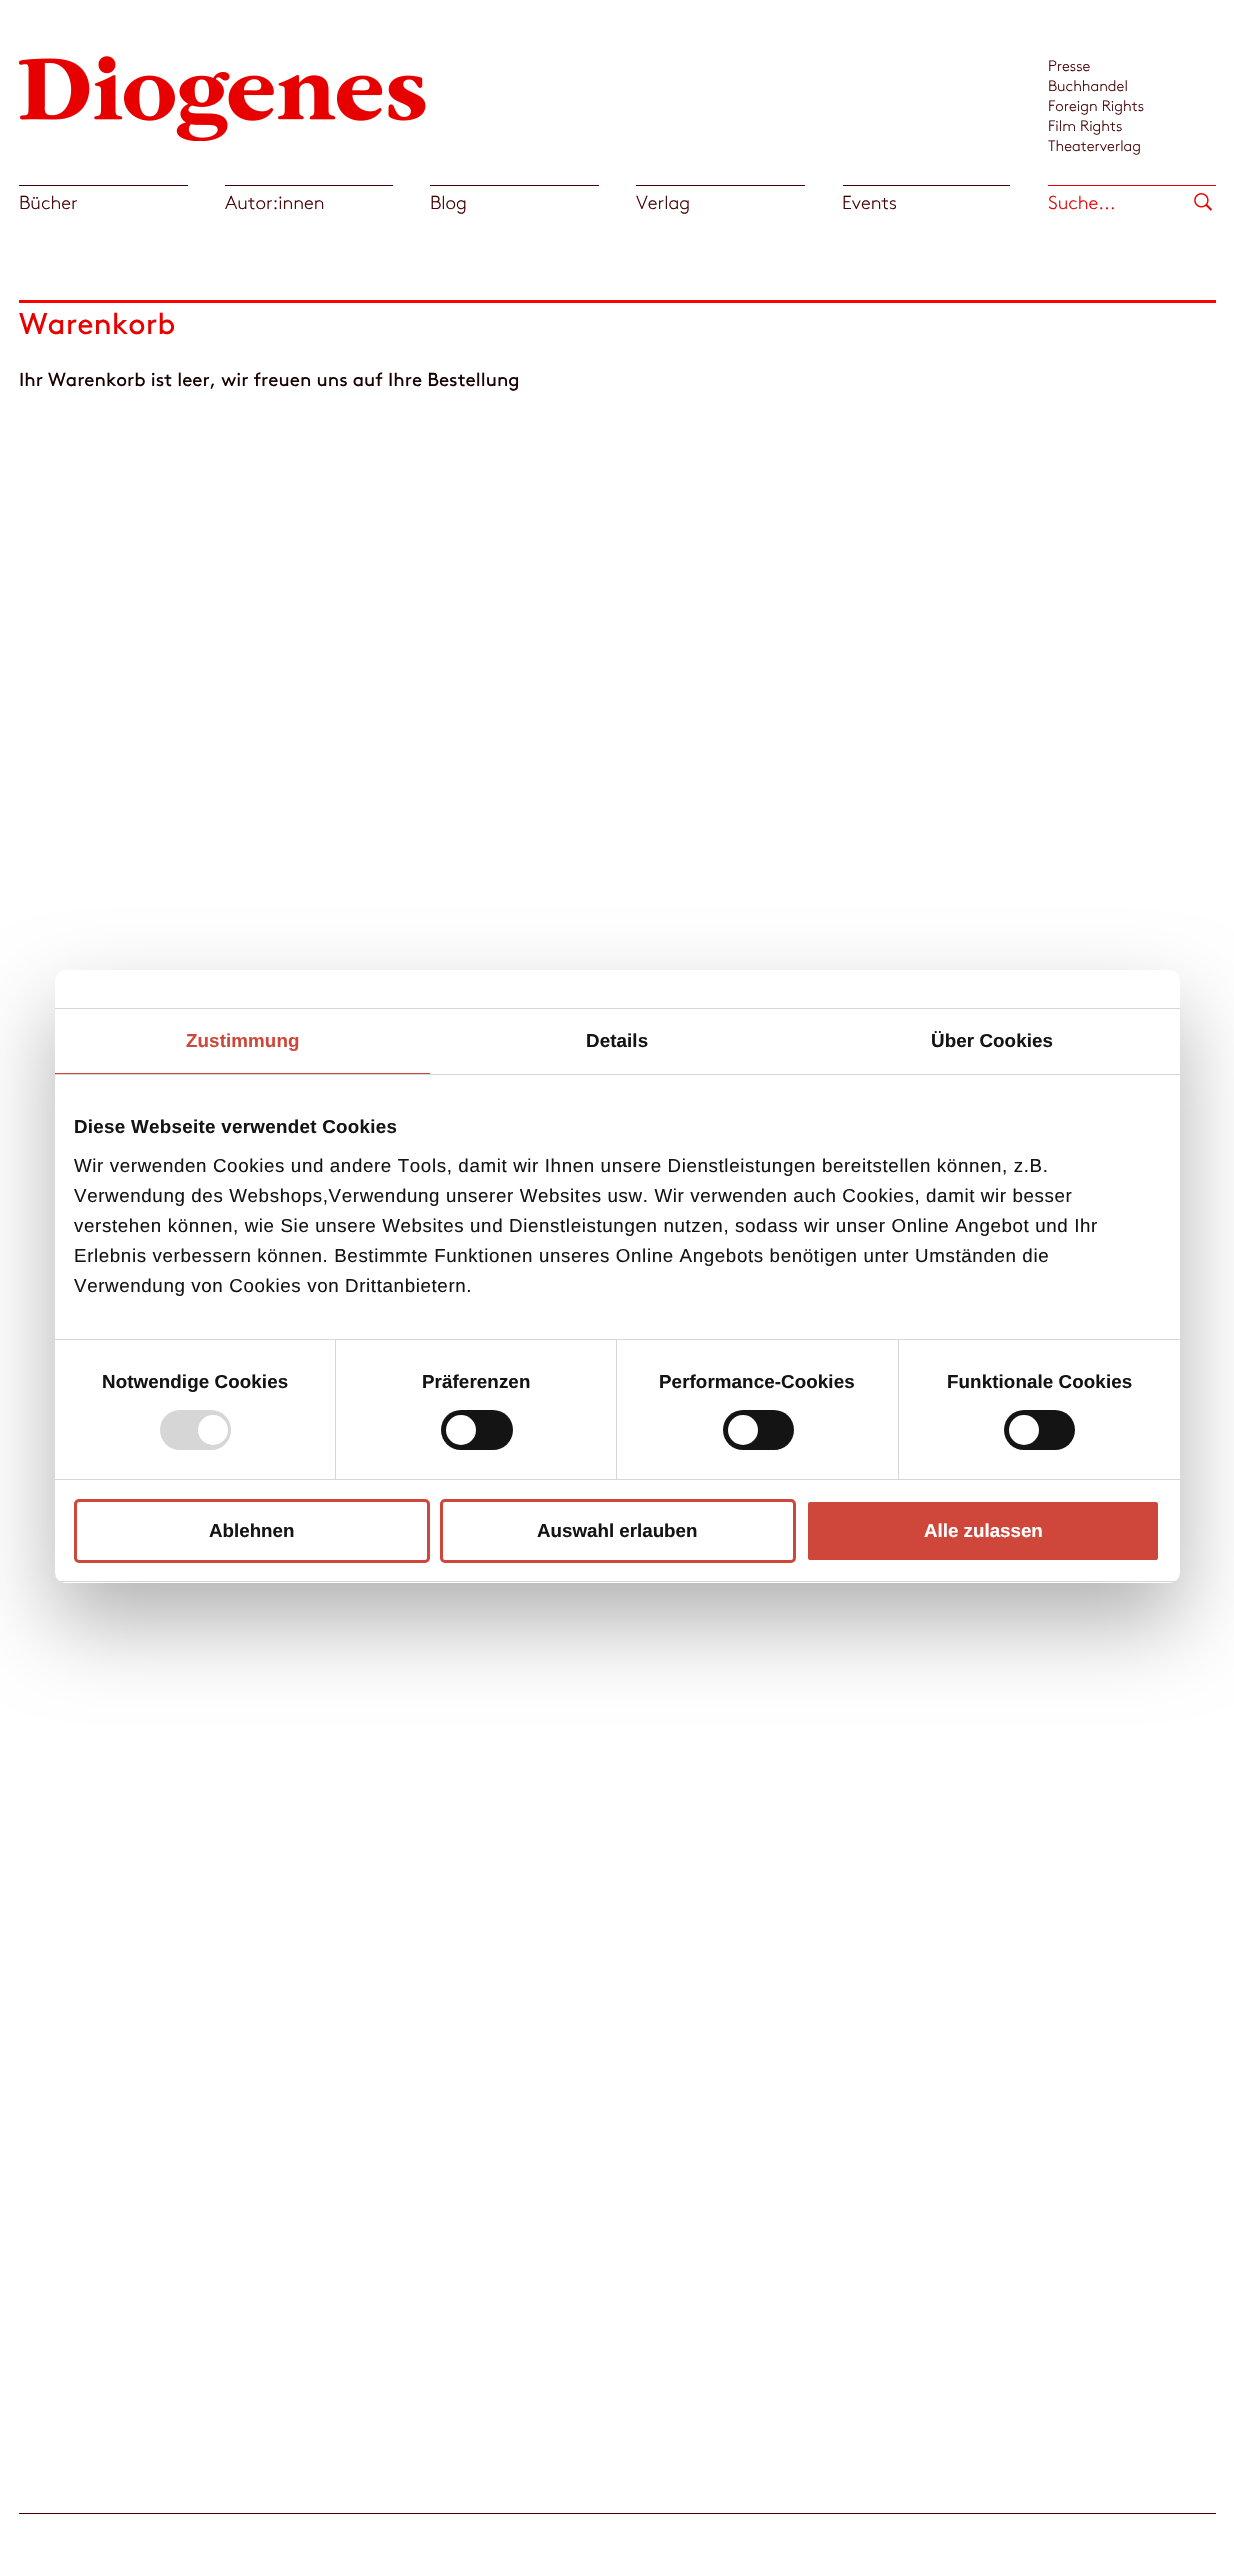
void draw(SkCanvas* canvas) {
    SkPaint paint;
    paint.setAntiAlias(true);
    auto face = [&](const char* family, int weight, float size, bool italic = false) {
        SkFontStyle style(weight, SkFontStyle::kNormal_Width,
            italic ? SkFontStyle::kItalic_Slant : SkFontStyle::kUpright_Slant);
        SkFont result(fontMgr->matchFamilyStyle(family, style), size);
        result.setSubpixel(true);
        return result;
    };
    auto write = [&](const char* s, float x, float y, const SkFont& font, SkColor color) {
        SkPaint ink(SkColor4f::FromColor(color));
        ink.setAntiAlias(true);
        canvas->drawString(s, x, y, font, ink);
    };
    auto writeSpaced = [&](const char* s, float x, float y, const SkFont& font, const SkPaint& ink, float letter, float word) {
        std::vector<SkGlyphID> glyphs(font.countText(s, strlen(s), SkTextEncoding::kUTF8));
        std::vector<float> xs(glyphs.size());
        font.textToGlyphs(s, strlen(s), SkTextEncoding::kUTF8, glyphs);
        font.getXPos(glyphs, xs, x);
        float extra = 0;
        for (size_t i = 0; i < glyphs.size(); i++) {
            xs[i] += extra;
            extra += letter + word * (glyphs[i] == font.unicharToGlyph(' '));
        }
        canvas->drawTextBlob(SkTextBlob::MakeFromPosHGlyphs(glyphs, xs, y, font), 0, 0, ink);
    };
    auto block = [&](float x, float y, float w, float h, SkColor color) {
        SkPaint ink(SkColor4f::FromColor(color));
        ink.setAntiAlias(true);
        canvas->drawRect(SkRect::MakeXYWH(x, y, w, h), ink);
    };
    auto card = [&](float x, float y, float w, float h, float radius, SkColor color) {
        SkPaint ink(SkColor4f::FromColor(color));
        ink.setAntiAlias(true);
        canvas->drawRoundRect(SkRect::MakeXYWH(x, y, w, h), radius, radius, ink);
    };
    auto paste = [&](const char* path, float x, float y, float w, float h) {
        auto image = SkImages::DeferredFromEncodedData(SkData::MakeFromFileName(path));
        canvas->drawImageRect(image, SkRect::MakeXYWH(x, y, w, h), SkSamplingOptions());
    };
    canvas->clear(SK_ColorWHITE);
    paste("pic1.png", 19, 56, 407, 85);
    auto kFont1 = face("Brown", 300, 15);
    write("Presse", 1048, 71, kFont1, SkColorSetRGB(68, 0, 0));
    write("Buchhandel", 1048, 91, kFont1, SkColorSetRGB(68, 0, 0));
    write("Foreign Rights", 1048, 111, kFont1, SkColorSetRGB(68, 0, 0));
    write("Film Rights", 1048, 131, kFont1, SkColorSetRGB(68, 0, 0));
    write("Theaterverlag", 1048, 151, kFont1, SkColorSetRGB(68, 0, 0));
    block(19, 185, 169, 1, SkColorSetRGB(68, 0, 0));
    auto kFont2 = face("Brown", 300, 18.75f);
    write("Bücher", 19, 209, kFont2, SkColorSetRGB(68, 0, 0));
    block(225, 185, 168, 1, SkColorSetRGB(68, 0, 0));
    write("Autor:innen", 225, 209, kFont2, SkColorSetRGB(68, 0, 0));
    block(430, 185, 169, 1, SkColorSetRGB(68, 0, 0));
    write("Blog", 430, 209, kFont2, SkColorSetRGB(68, 0, 0));
    block(636, 185, 169, 1, SkColorSetRGB(68, 0, 0));
    write("Verlag", 636, 209, kFont2, SkColorSetRGB(68, 0, 0));
    block(843, 185, 167, 1, SkColorSetRGB(68, 0, 0));
    write("Events", 842, 209, kFont2, SkColorSetRGB(68, 0, 0));
    block(1048, 185, 168, 1, SkColorSetRGB(232, 0, 0));
    write("Suche...", 1048, 209, kFont2, SkColorSetRGB(232, 0, 0));
    paste("pic2.png", 1194, 193, 18, 18);
    block(19, 300, 1197, 3, SkColorSetRGB(255, 0, 0));
    auto kFont3 = face("Brown", 400, 30);
    write("Warenkorb", 19, 334, kFont3, SkColorSetRGB(232, 0, 0));
    auto kFont4 = face("Brown", 400, 18.75f);
    write("Ihr Warenkorb ist leer, wir freuen uns auf Ihre Bestellung", 19, 386, kFont4, SkColorSetRGB(24, 0, 0));
    paint.setColor(SkColorSetARGB(77, 0, 0, 0));
    paint.setMaskFilter(SkMaskFilter::MakeBlur(kNormal_SkBlurStyle, 42.5f));
    canvas->drawRoundRect(SkRect::MakeXYWH(55, 1010, 1125, 613), 10, 10, paint);
    paint.setMaskFilter(nullptr);
    card(55, 970, 1125, 613, 10, SK_ColorWHITE);
    block(55, 1008, 1125, 1, SkColorSetRGB(214, 214, 214));
    block(55, 1074, 1125, 1, SkColorSetRGB(214, 214, 214));
    block(55, 1073, 375, 1, SkColorSetRGB(207, 71, 59));
    auto kFont5 = face("Liberation Sans", 700, 18.75f);
    paint.setColor(SkColorSetRGB(207, 71, 59));
    writeSpaced("Zustimmung", 186, 1047, kFont5, paint, 0.1f, 0);
    paint.setColor(SkColorSetRGB(20, 20, 20));
    writeSpaced("Details", 586, 1047, kFont5, paint, 0.1f, 0);
    writeSpaced("Über Cookies", 931, 1047, kFont5, paint, 0.1f, 0);
    block(55, 1339, 1125, 1, SkColorSetRGB(214, 214, 214));
    writeSpaced("Diese Webseite verwendet Cookies", 74, 1133, kFont5, paint, 0.3f, 0);
    auto kFont6 = face("Liberation Sans", 400, 18.75f);
    writeSpaced("Wir verwenden Cookies und andere Tools, damit wir Ihnen unsere Dienstleistungen bereitstellen können, z.B.", 74, 1172, kFont6, paint, 0.62f, 0);
    writeSpaced("Verwendung des Webshops,Verwendung unserer Websites usw. Wir verwenden auch Cookies, damit wir besser", 74, 1202, kFont6, paint, 0.62f, 0);
    writeSpaced("verstehen können, wie Sie unsere Websites und Dienstleistungen nutzen, sodass wir unser Online Angebot und Ihr", 74, 1232, kFont6, paint, 0.62f, 0);
    writeSpaced("Erlebnis verbessern können. Bestimmte Funktionen unseres Online Angebots benötigen unter Umständen die", 74, 1262, kFont6, paint, 0.62f, 0);
    writeSpaced("Verwendung von Cookies von Drittanbietern.", 74, 1292, kFont6, paint, 0.62f, 0);
    block(55, 1479, 1125, 1, SkColorSetRGB(214, 214, 214));
    block(335, 1340, 1, 139, SkColorSetRGB(214, 214, 214));
    writeSpaced("Notwendige Cookies", 102, 1388, kFont5, paint, 0.1f, 0);
    card(160, 1410, 71, 40, 20, SkColorSetRGB(214, 214, 214));
    paint.setColor(SK_ColorWHITE);
    canvas->drawCircle(213, 1430, 15, paint);
    block(616, 1340, 1, 139, SkColorSetRGB(214, 214, 214));
    paint.setColor(SkColorSetRGB(20, 20, 20));
    writeSpaced("Präferenzen", 422, 1388, kFont5, paint, 0.1f, 0);
    card(441, 1410, 72, 40, 20, SkColorSetRGB(20, 20, 20));
    paint.setColor(SK_ColorWHITE);
    canvas->drawCircle(461, 1430, 15, paint);
    block(898, 1340, 1, 139, SkColorSetRGB(214, 214, 214));
    paint.setColor(SkColorSetRGB(20, 20, 20));
    writeSpaced("Performance-Cookies", 659, 1388, kFont5, paint, 0.1f, 0);
    card(723, 1410, 71, 40, 20, SkColorSetRGB(20, 20, 20));
    paint.setColor(SK_ColorWHITE);
    canvas->drawCircle(743, 1430, 15, paint);
    paint.setColor(SkColorSetRGB(20, 20, 20));
    writeSpaced("Funktionale Cookies", 947, 1388, kFont5, paint, 0.1f, 0);
    card(1004, 1410, 71, 40, 20, SkColorSetRGB(20, 20, 20));
    paint.setColor(SK_ColorWHITE);
    canvas->drawCircle(1024, 1430, 15, paint);
    canvas->save();
    canvas->clipPath(SkPathBuilder().moveTo(65, 970).lineTo(1170, 970).cubicTo(1175.5f, 970, 1180, 974.5f, 1180, 980).lineTo(1180, 1573).cubicTo(1180, 1578.5f, 1175.5f, 1583, 1170, 1583).lineTo(65, 1583).cubicTo(59.5f, 1583, 55, 1578.5f, 55, 1573).lineTo(55, 980).cubicTo(55, 974.5f, 59.5f, 970, 65, 970).close().detach(), true);
    block(55, 1581, 1125, 1, SkColorSetRGB(214, 214, 214));
    canvas->restore();
    paint.setStyle(SkPaint::kStroke_Style);
    paint.setStrokeWidth(3);
    paint.setColor(SkColorSetRGB(207, 71, 59));
    canvas->drawRoundRect(SkRect::MakeXYWH(75.5f, 1500.5f, 353, 61), 3.5f, 3.5f, paint);
    write("Ablehnen", 209, 1537, kFont5, SkColorSetRGB(20, 20, 20));
    canvas->drawRoundRect(SkRect::MakeXYWH(441.5f, 1500.5f, 353, 61), 3.5f, 3.5f, paint);
    write("Auswahl erlauben", 537, 1537, kFont5, SkColorSetRGB(20, 20, 20));
    paint.setStyle(SkPaint::kFill_Style);
    canvas->drawRoundRect(SkRect::MakeXYWH(806.5f, 1500.5f, 353, 61), 3.5f, 3.5f, paint);
    paint.setStyle(SkPaint::kStroke_Style);
    paint.setColor(SK_ColorWHITE);
    canvas->drawRoundRect(SkRect::MakeXYWH(806.5f, 1500.5f, 353, 61), 3.5f, 3.5f, paint);
    write("Alle zulassen", 924, 1537, kFont5, SK_ColorWHITE);
    block(19, 2513, 1197, 1, SkColorSetRGB(68, 0, 0));
}
